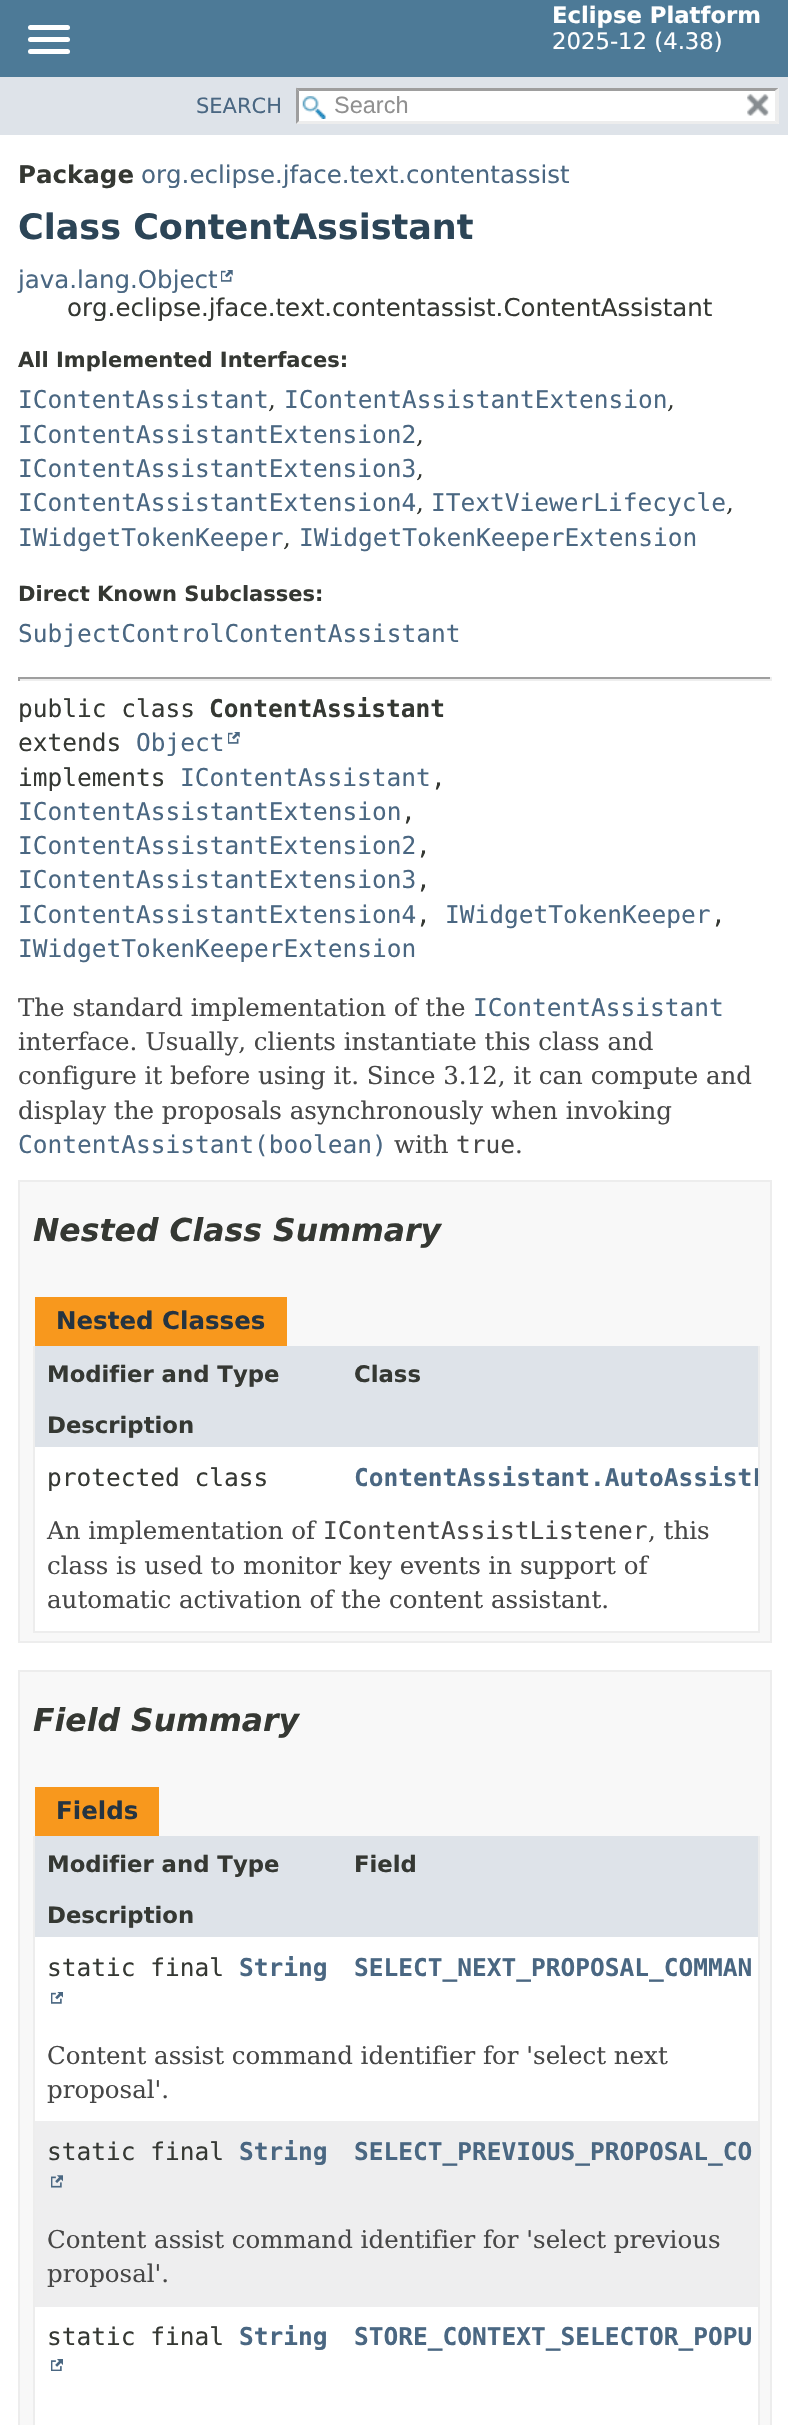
void draw(SkCanvas* canvas) {
    SkPaint paint;
    paint.setAntiAlias(true);
    auto face = [&](const char* family, int weight, float size, bool italic = false) {
        SkFontStyle style(weight, SkFontStyle::kNormal_Width,
            italic ? SkFontStyle::kItalic_Slant : SkFontStyle::kUpright_Slant);
        SkFont result(fontMgr->matchFamilyStyle(family, style), size);
        result.setSubpixel(true);
        return result;
    };
    auto write = [&](const char* s, float x, float y, const SkFont& font, SkColor color) {
        SkPaint ink(SkColor4f::FromColor(color));
        ink.setAntiAlias(true);
        canvas->drawString(s, x, y, font, ink);
    };
    auto block = [&](float x, float y, float w, float h, SkColor color) {
        SkPaint ink(SkColor4f::FromColor(color));
        ink.setAntiAlias(true);
        canvas->drawRect(SkRect::MakeXYWH(x, y, w, h), ink);
    };
    auto card = [&](float x, float y, float w, float h, float radius, SkColor color) {
        SkPaint ink(SkColor4f::FromColor(color));
        ink.setAntiAlias(true);
        canvas->drawRoundRect(SkRect::MakeXYWH(x, y, w, h), radius, radius, ink);
    };
    auto paste = [&](const char* path, float x, float y, float w, float h) {
        auto image = SkImages::DeferredFromEncodedData(SkData::MakeFromFileName(path));
        canvas->drawImageRect(image, SkRect::MakeXYWH(x, y, w, h), SkSamplingOptions());
    };
    canvas->clear(SK_ColorWHITE);
    block(0, 0, 788, 77, SkColorSetRGB(77, 122, 151));
    card(28, 25, 42, 5, 2.5f, SK_ColorWHITE);
    card(28, 37, 42, 5, 2.5f, SK_ColorWHITE);
    card(28, 49, 42, 5, 2.5f, SK_ColorWHITE);
    auto kFont1 = face("DejaVu Sans", 700, 22.75f);
    write("Eclipse Platform", 552, 23, kFont1, SK_ColorWHITE);
    auto kFont2 = face("DejaVu Sans", 400, 22.75f);
    write("2025-12 (4.38)", 552, 49, kFont2, SK_ColorWHITE);
    block(0, 77, 788, 58, SkColorSetRGB(222, 227, 233));
    auto kFont3 = face("DejaVu Sans", 400, 21);
    write("SEARCH", 196, 113, kFont3, SkColorSetRGB(74, 103, 130));
    block(296, 88, 483, 36, SK_ColorWHITE);
    paste("pic1.png", 302, 96, 24, 23);
    paint.setColor(SkColorSetRGB(158, 158, 158));
    canvas->drawPath(SkPathBuilder().moveTo(296, 88).lineTo(779, 88).lineTo(775, 91).lineTo(299, 91).close().detach(), paint);
    paint.setColor(SkColorSetRGB(237, 237, 237));
    canvas->drawPath(SkPathBuilder().moveTo(779, 87.5f).lineTo(779, 124).lineTo(775, 121).lineTo(775, 91).close().detach(), paint);
    canvas->drawPath(SkPathBuilder().moveTo(779, 124).lineTo(296, 124).lineTo(299, 121).lineTo(775, 121).close().detach(), paint);
    paint.setColor(SkColorSetRGB(158, 158, 158));
    canvas->drawPath(SkPathBuilder().moveTo(296, 124).lineTo(296, 87.5f).lineTo(299, 91).lineTo(299, 121).close().detach(), paint);
    auto kFont4 = face("Liberation Sans", 400, 23.5f);
    write("Search", 334, 113, kFont4, SkColorSetRGB(144, 144, 144));
    paste("pic2.png", 747, 93, 22, 23);
    auto kFont5 = face("DejaVu Sans", 700, 24.5f);
    write("Package", 18, 183, kFont5, SkColorSetRGB(53, 56, 51));
    auto kFont6 = face("DejaVu Sans", 400, 24.5f);
    write("org.eclipse.jface.text.contentassist", 141, 183, kFont6, SkColorSetRGB(74, 103, 130));
    auto kFont7 = face("DejaVu Sans", 700, 35);
    write("Class ContentAssistant", 18, 239, kFont7, SkColorSetRGB(44, 69, 87));
    write("java.lang.Object", 18, 288, kFont6, SkColorSetRGB(74, 103, 130));
    paste("pic3.png", 221, 270, 12, 12);
    write("org.eclipse.jface.text.contentassist.ContentAssistant", 67, 316, kFont6, SkColorSetRGB(53, 56, 51));
    auto kFont8 = face("DejaVu Sans", 700, 21);
    write("All Implemented Interfaces:", 18, 367, kFont8, SkColorSetRGB(53, 56, 51));
    auto kFont9 = face("DejaVu Sans Mono", 400, 24.5f);
    write("IContentAssistant", 18, 408, kFont9, SkColorSetRGB(74, 103, 130));
    auto kFont10 = face("DejaVu Serif", 400, 24.5f);
    write(",", 268, 408, kFont10, SkColorSetRGB(53, 56, 51));
    write("IContentAssistantExtension", 284, 408, kFont9, SkColorSetRGB(74, 103, 130));
    write(",", 667, 408, kFont10, SkColorSetRGB(53, 56, 51));
    write("IContentAssistantExtension2", 18, 443, kFont9, SkColorSetRGB(74, 103, 130));
    write(",", 416, 443, kFont10, SkColorSetRGB(53, 56, 51));
    write("IContentAssistantExtension3", 18, 477, kFont9, SkColorSetRGB(74, 103, 130));
    write(",", 416, 477, kFont10, SkColorSetRGB(53, 56, 51));
    write("IContentAssistantExtension4", 18, 511, kFont9, SkColorSetRGB(74, 103, 130));
    write(",", 416, 511, kFont10, SkColorSetRGB(53, 56, 51));
    write("ITextViewerLifecycle", 431, 511, kFont9, SkColorSetRGB(74, 103, 130));
    write(",", 726, 511, kFont10, SkColorSetRGB(53, 56, 51));
    write("IWidgetTokenKeeper", 18, 546, kFont9, SkColorSetRGB(74, 103, 130));
    write(",", 283, 546, kFont10, SkColorSetRGB(53, 56, 51));
    write("IWidgetTokenKeeperExtension", 299, 546, kFont9, SkColorSetRGB(74, 103, 130));
    write("Direct Known Subclasses:", 18, 601, kFont8, SkColorSetRGB(53, 56, 51));
    write("SubjectControlContentAssistant", 18, 642, kFont9, SkColorSetRGB(74, 103, 130));
    block(18, 677, 754, 2, SkColorSetRGB(159, 159, 159));
    block(770, 677, 2, 4, SkColorSetRGB(238, 238, 238));
    block(18, 679, 754, 2, SkColorSetRGB(238, 238, 238));
    block(18, 677, 2, 4, SkColorSetRGB(159, 159, 159));
    write("public class", 18, 717, kFont9, SkColorSetRGB(53, 56, 51));
    auto kFont11 = face("DejaVu Sans Mono", 700, 24.5f);
    write("ContentAssistant", 209, 717, kFont11, SkColorSetRGB(53, 56, 51));
    write("extends", 18, 751, kFont9, SkColorSetRGB(53, 56, 51));
    write("Object", 136, 751, kFont9, SkColorSetRGB(74, 103, 130));
    paste("pic3.png", 228, 732, 12, 12);
    write("implements", 18, 786, kFont9, SkColorSetRGB(53, 56, 51));
    write("IContentAssistant", 180, 786, kFont9, SkColorSetRGB(74, 103, 130));
    write(",", 431, 786, kFont9, SkColorSetRGB(53, 56, 51));
    write("IContentAssistantExtension", 18, 820, kFont9, SkColorSetRGB(74, 103, 130));
    write(",", 401, 820, kFont9, SkColorSetRGB(53, 56, 51));
    write("IContentAssistantExtension2", 18, 854, kFont9, SkColorSetRGB(74, 103, 130));
    write(",", 416, 854, kFont9, SkColorSetRGB(53, 56, 51));
    write("IContentAssistantExtension3", 18, 888, kFont9, SkColorSetRGB(74, 103, 130));
    write(",", 416, 888, kFont9, SkColorSetRGB(53, 56, 51));
    write("IContentAssistantExtension4", 18, 923, kFont9, SkColorSetRGB(74, 103, 130));
    write(",", 416, 923, kFont9, SkColorSetRGB(53, 56, 51));
    write("IWidgetTokenKeeper", 445, 923, kFont9, SkColorSetRGB(74, 103, 130));
    write(",", 711, 923, kFont9, SkColorSetRGB(53, 56, 51));
    write("IWidgetTokenKeeperExtension", 18, 957, kFont9, SkColorSetRGB(74, 103, 130));
    write("The standard implementation of the", 18, 1016, kFont10, SkColorSetRGB(71, 71, 71));
    write("IContentAssistant", 473, 1016, kFont9, SkColorSetRGB(74, 103, 130));
    write("interface. Usually, clients instantiate this class and", 18, 1050, kFont10, SkColorSetRGB(71, 71, 71));
    write("configure it before using it. Since 3.12, it can compute and", 18, 1084, kFont10, SkColorSetRGB(71, 71, 71));
    write("display the proposals asynchronously when invoking", 18, 1119, kFont10, SkColorSetRGB(71, 71, 71));
    write("ContentAssistant(boolean)", 18, 1153, kFont9, SkColorSetRGB(74, 103, 130));
    write("with", 394, 1153, kFont10, SkColorSetRGB(71, 71, 71));
    write("true", 456, 1153, kFont9, SkColorSetRGB(71, 71, 71));
    write(".", 515, 1153, kFont10, SkColorSetRGB(71, 71, 71));
    paint.setColor(SkColorSetRGB(248, 248, 248));
    canvas->drawRect(SkRect::MakeXYWH(19, 1181, 752, 461), paint);
    paint.setStyle(SkPaint::kStroke_Style);
    paint.setStrokeWidth(2);
    paint.setColor(SkColorSetRGB(237, 237, 237));
    canvas->drawRect(SkRect::MakeXYWH(19, 1181, 752, 461), paint);
    auto kFont12 = face("DejaVu Sans", 700, 31.5f, true);
    write("Nested Class Summary", 33, 1241, kFont12, SkColorSetRGB(53, 56, 51));
    block(35, 1297, 252, 49, SkColorSetRGB(248, 152, 29));
    write("Nested Classes", 56, 1329, kFont5, SkColorSetRGB(37, 52, 65));
    block(758, 1346, 2, 287, SkColorSetRGB(237, 237, 237));
    block(33, 1631, 727, 2, SkColorSetRGB(237, 237, 237));
    block(33, 1346, 2, 287, SkColorSetRGB(237, 237, 237));
    block(35, 1346, 723, 101, SkColorSetRGB(222, 227, 233));
    write("Modifier and Type", 47, 1382, kFont1, SkColorSetRGB(53, 56, 51));
    write("Class", 354, 1382, kFont1, SkColorSetRGB(53, 56, 51));
    write("Description", 47, 1433, kFont1, SkColorSetRGB(53, 56, 51));
    block(35, 1447, 723, 184, SK_ColorWHITE);
    write("protected class", 47, 1486, kFont9, SkColorSetRGB(53, 56, 51));
    canvas->save();
    canvas->clipRect(SkRect::MakeXYWH(343, 1447, 415, 55));
    write("ContentAssistant.AutoAssistL", 354, 1486, kFont11, SkColorSetRGB(74, 103, 130));
    canvas->restore();
    write("An implementation of", 47, 1539, kFont10, SkColorSetRGB(71, 71, 71));
    write("IContentAssistListener", 323, 1539, kFont9, SkColorSetRGB(71, 71, 71));
    write(", this", 648, 1539, kFont10, SkColorSetRGB(71, 71, 71));
    write("class is used to monitor key events in support of", 47, 1574, kFont10, SkColorSetRGB(71, 71, 71));
    write("automatic activation of the content assistant.", 47, 1608, kFont10, SkColorSetRGB(71, 71, 71));
    paint.setStyle(SkPaint::kFill_Style);
    paint.setColor(SkColorSetRGB(248, 248, 248));
    canvas->drawRect(SkRect::MakeXYWH(19, 1671, 752, 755), paint);
    paint.setStyle(SkPaint::kStroke_Style);
    paint.setColor(SkColorSetRGB(237, 237, 237));
    canvas->drawRect(SkRect::MakeXYWH(19, 1671, 752, 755), paint);
    write("Field Summary", 33, 1731, kFont12, SkColorSetRGB(53, 56, 51));
    block(35, 1787, 124, 49, SkColorSetRGB(248, 152, 29));
    write("Fields", 56, 1819, kFont5, SkColorSetRGB(37, 52, 65));
    block(758, 1836, 2, 589, SkColorSetRGB(237, 237, 237));
    block(33, 1836, 2, 589, SkColorSetRGB(237, 237, 237));
    block(35, 1836, 723, 101, SkColorSetRGB(222, 227, 233));
    write("Modifier and Type", 47, 1872, kFont1, SkColorSetRGB(53, 56, 51));
    write("Field", 354, 1872, kFont1, SkColorSetRGB(53, 56, 51));
    write("Description", 47, 1923, kFont1, SkColorSetRGB(53, 56, 51));
    block(35, 1937, 723, 184, SK_ColorWHITE);
    write("static final", 47, 1976, kFont9, SkColorSetRGB(53, 56, 51));
    write("String", 239, 1976, kFont11, SkColorSetRGB(74, 103, 130));
    paste("pic4.png", 51, 1992, 12, 12);
    write("SELECT_NEXT_PROPOSAL_COMMAN", 354, 1976, kFont11, SkColorSetRGB(74, 103, 130));
    write("Content assist command identifier for 'select next", 47, 2064, kFont10, SkColorSetRGB(71, 71, 71));
    write("proposal'.", 47, 2098, kFont10, SkColorSetRGB(71, 71, 71));
    block(35, 2121, 723, 186, SkColorSetRGB(238, 238, 239));
    write("static final", 47, 2160, kFont9, SkColorSetRGB(53, 56, 51));
    write("String", 239, 2160, kFont11, SkColorSetRGB(74, 103, 130));
    paste("pic5.png", 51, 2175, 12, 13);
    write("SELECT_PREVIOUS_PROPOSAL_CO", 354, 2160, kFont11, SkColorSetRGB(74, 103, 130));
    write("Content assist command identifier for 'select previous", 47, 2248, kFont10, SkColorSetRGB(71, 71, 71));
    write("proposal'.", 47, 2282, kFont10, SkColorSetRGB(71, 71, 71));
    block(35, 2307, 723, 118, SK_ColorWHITE);
    write("static final", 47, 2345, kFont9, SkColorSetRGB(53, 56, 51));
    write("String", 239, 2345, kFont11, SkColorSetRGB(74, 103, 130));
    paste("pic6.png", 51, 2359, 12, 12);
    write("STORE_CONTEXT_SELECTOR_POPU", 354, 2345, kFont11, SkColorSetRGB(74, 103, 130));
}
